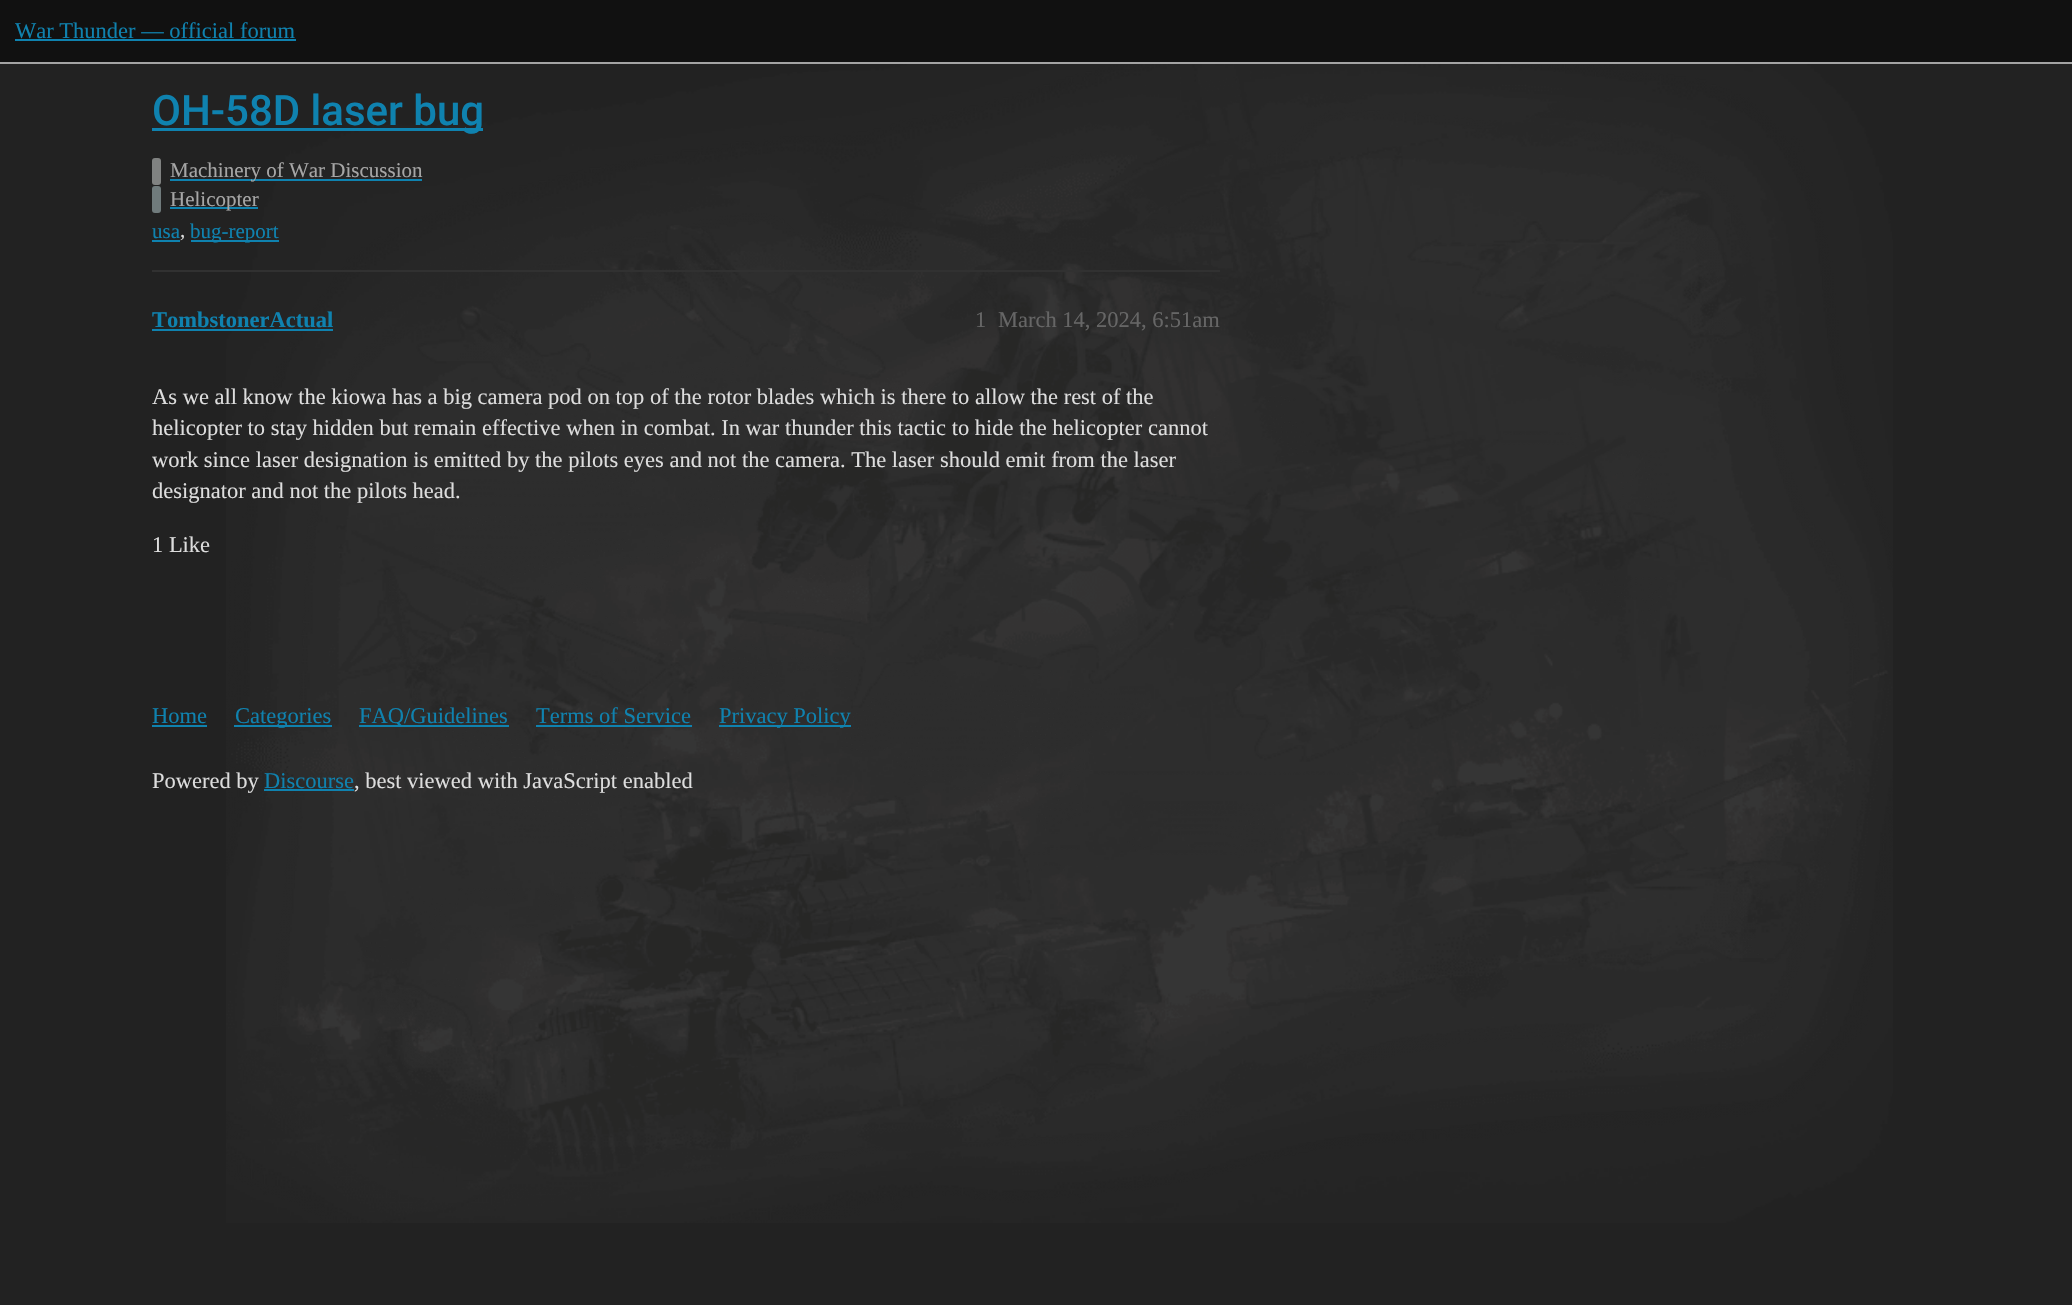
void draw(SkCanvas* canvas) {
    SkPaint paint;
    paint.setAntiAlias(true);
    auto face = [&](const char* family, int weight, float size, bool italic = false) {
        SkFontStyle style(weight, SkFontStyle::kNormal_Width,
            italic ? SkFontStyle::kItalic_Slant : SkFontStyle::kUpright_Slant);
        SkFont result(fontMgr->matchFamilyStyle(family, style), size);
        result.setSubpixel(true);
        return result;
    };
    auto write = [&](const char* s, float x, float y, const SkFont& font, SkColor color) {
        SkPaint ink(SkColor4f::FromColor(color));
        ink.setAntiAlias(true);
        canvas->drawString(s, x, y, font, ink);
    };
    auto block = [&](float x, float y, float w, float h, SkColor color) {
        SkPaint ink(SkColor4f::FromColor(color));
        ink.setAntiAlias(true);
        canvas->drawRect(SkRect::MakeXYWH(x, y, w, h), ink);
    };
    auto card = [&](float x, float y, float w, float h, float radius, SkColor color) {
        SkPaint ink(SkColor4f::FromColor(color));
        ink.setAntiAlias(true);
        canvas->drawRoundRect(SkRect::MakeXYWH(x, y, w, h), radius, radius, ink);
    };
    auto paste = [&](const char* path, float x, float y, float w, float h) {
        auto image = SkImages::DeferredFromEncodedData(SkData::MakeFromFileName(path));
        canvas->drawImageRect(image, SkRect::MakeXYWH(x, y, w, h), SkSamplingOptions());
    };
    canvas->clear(SkColorSetRGB(34, 34, 34));
    paste("pic1.png", 226, 64, 1667, 1159);
    block(0, 0, 2072, 62, SkColorSetRGB(17, 17, 17));
    block(0, 62, 2072, 2, SkColorSetRGB(164, 164, 164));
    auto kFont1 = face("Liberation Serif", 400, 22.5f);
    write("War Thunder — official forum", 15, 38, kFont1, SkColorSetRGB(15, 130, 175));
    block(15, 39, 281, 2, SkColorSetRGB(15, 130, 175));
    block(152, 128, 331, 3, SkColorSetRGB(15, 130, 175));
    auto kFont2 = face("Roboto", 500, 42);
    write("OH-58D laser bug", 152, 125, kFont2, SkColorSetRGB(15, 130, 175));
    card(152, 158, 9, 27, 3, SkColorSetRGB(128, 130, 129));
    block(170, 179, 252, 2, SkColorSetRGB(15, 130, 175));
    auto kFont3 = face("Liberation Serif", 400, 21);
    write("Machinery of War Discussion", 170, 177, kFont3, SkColorSetRGB(166, 166, 166));
    card(152, 186, 9, 27, 3, SkColorSetRGB(112, 123, 124));
    block(170, 207, 88, 2, SkColorSetRGB(15, 130, 175));
    write("Helicopter", 170, 206, kFont3, SkColorSetRGB(166, 166, 166));
    write("usa", 152, 238, kFont3, SkColorSetRGB(15, 130, 175));
    block(152, 240, 28, 2, SkColorSetRGB(15, 130, 175));
    write(",", 180, 237, kFont3, SkColorSetRGB(221, 221, 221));
    block(191, 240, 88, 2, SkColorSetRGB(15, 130, 175));
    write("bug-report", 190, 238, kFont3, SkColorSetRGB(15, 130, 175));
    block(152, 270, 1068, 2, SkColorSetRGB(49, 49, 49));
    auto kFont4 = face("Liberation Serif", 700, 22.5f);
    write("TombstonerActual", 152, 327, kFont4, SkColorSetRGB(15, 130, 175));
    block(152, 329, 181, 2, SkColorSetRGB(15, 130, 175));
    write("1", 975, 327, kFont1, SkColorSetRGB(102, 102, 102));
    write("March 14, 2024, 6:51am", 998, 327, kFont1, SkColorSetRGB(102, 102, 102));
    write("As we all know the kiowa has a big camera pod on top of the rotor blades which is there to allow the rest of the", 152, 404, kFont1, SkColorSetRGB(221, 221, 221));
    write("helicopter to stay hidden but remain effective when in combat. In war thunder this tactic to hide the helicopter cannot", 152, 435, kFont1, SkColorSetRGB(221, 221, 221));
    write("work since laser designation is emitted by the pilots eyes and not the camera. The laser should emit from the laser", 152, 467, kFont1, SkColorSetRGB(221, 221, 221));
    write("designator and not the pilots head.", 152, 498, kFont1, SkColorSetRGB(221, 221, 221));
    write("1 Like", 152, 552, kFont1, SkColorSetRGB(221, 221, 221));
    write("Home", 152, 723, kFont1, SkColorSetRGB(15, 130, 175));
    block(152, 725, 55, 2, SkColorSetRGB(15, 130, 175));
    block(234, 725, 98, 2, SkColorSetRGB(15, 130, 175));
    write("Categories", 235, 723, kFont1, SkColorSetRGB(15, 130, 175));
    block(359, 725, 150, 2, SkColorSetRGB(15, 130, 175));
    write("FAQ/Guidelines", 359, 723, kFont1, SkColorSetRGB(15, 130, 175));
    write("Terms of Service", 536, 723, kFont1, SkColorSetRGB(15, 130, 175));
    block(536, 725, 156, 2, SkColorSetRGB(15, 130, 175));
    block(719, 725, 132, 2, SkColorSetRGB(15, 130, 175));
    write("Privacy Policy", 719, 723, kFont1, SkColorSetRGB(15, 130, 175));
    write("Powered by", 152, 788, kFont1, SkColorSetRGB(221, 221, 221));
    write("Discourse", 264, 788, kFont1, SkColorSetRGB(15, 130, 175));
    block(264, 789, 90, 2, SkColorSetRGB(15, 130, 175));
    write(", best viewed with JavaScript enabled", 354, 788, kFont1, SkColorSetRGB(221, 221, 221));
}
